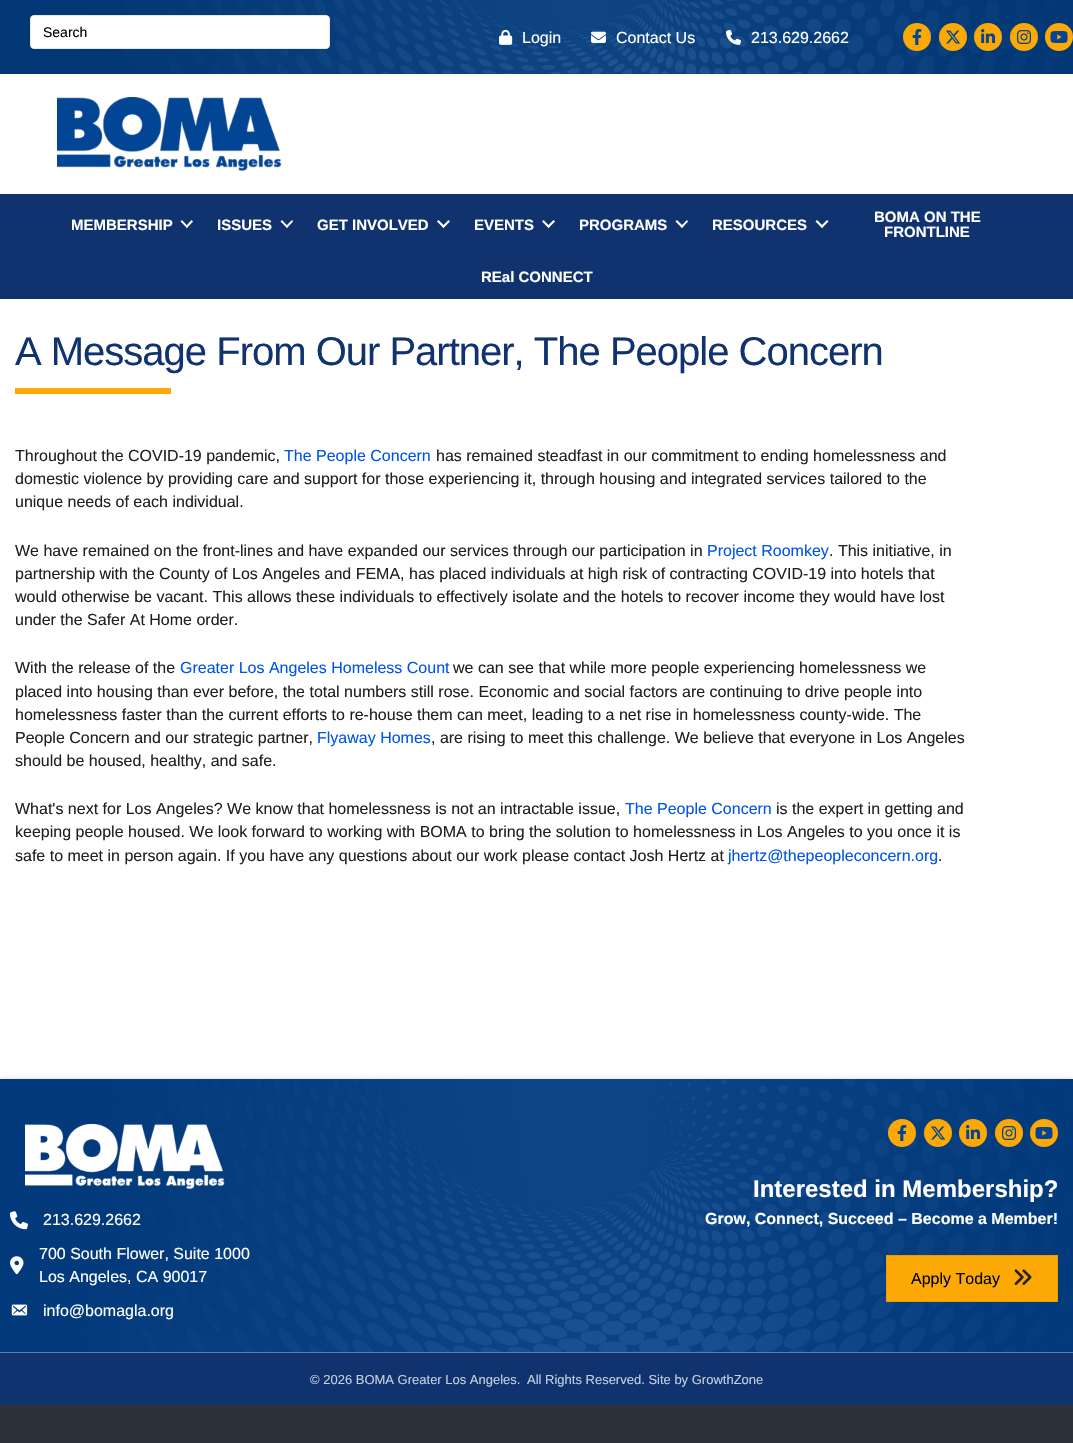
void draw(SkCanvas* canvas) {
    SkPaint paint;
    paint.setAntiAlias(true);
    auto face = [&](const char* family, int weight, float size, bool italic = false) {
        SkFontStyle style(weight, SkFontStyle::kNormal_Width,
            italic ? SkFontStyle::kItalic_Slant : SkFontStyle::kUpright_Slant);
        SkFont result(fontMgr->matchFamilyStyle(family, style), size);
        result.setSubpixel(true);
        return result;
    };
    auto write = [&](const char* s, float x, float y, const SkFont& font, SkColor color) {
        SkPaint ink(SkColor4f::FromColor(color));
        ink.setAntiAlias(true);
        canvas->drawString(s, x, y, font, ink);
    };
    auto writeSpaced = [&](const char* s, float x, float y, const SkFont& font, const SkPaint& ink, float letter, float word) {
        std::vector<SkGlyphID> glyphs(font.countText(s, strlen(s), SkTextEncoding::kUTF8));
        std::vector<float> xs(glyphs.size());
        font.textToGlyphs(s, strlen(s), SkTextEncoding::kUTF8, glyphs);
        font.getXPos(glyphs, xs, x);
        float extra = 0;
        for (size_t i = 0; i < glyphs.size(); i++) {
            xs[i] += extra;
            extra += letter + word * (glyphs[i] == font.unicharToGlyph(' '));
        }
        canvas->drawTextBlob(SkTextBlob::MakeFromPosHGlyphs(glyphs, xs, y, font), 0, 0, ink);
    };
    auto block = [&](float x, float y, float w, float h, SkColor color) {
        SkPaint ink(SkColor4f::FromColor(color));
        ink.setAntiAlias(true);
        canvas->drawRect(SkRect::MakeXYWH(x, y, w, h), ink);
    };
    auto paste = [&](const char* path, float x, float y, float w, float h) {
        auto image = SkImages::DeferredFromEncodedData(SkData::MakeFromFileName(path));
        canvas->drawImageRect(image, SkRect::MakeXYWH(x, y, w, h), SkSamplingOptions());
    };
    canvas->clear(SkColorSetRGB(45, 49, 58));
    paste("pic1.png", 0, 0, 1073, 74);
    paint.setColor(SK_ColorWHITE);
    canvas->drawRoundRect(SkRect::MakeXYWH(30.5f, 15.5f, 299, 33), 3.5f, 3.5f, paint);
    paint.setStyle(SkPaint::kStroke_Style);
    paint.setStrokeWidth(1);
    paint.setColor(SkColorSetRGB(230, 230, 230));
    canvas->drawRoundRect(SkRect::MakeXYWH(30.5f, 15.5f, 299, 33), 3.5f, 3.5f, paint);
    auto kFont1 = face("Liberation Sans", 400, 14);
    write("Search", 43, 37, kFont1, SK_ColorBLACK);
    paste("pic2.png", 499, 29, 14, 16);
    auto kFont2 = face("Liberation Sans", 400, 16);
    write("Login", 522, 43, kFont2, SK_ColorWHITE);
    paste("pic3.png", 591, 31, 15, 12);
    write("Contact Us", 616, 43, kFont2, SK_ColorWHITE);
    paste("pic4.png", 726, 29, 15, 16);
    write("213.629.2662", 751, 43, kFont2, SK_ColorWHITE);
    paint.setStyle(SkPaint::kFill_Style);
    paint.setColor(SkColorSetRGB(252, 168, 5));
    canvas->drawCircle(917, 37, 14, paint);
    paste("pic5.png", 912, 29, 10, 16);
    canvas->drawCircle(953, 37, 14, paint);
    paste("pic6.png", 946, 30, 15, 14);
    canvas->drawCircle(988, 37, 14, paint);
    paste("pic7.png", 981, 29, 14, 14);
    canvas->drawCircle(1024, 37, 14, paint);
    paste("pic8.png", 1017, 30, 14, 14);
    canvas->drawCircle(1059, 37, 14, paint);
    paste("pic9.png", 1050, 31, 18, 12);
    block(0, 74, 1073, 120, SK_ColorWHITE);
    paste("pic10.png", 57, 97, 225, 74);
    block(0, 194, 1073, 105, SkColorSetRGB(16, 51, 112));
    auto kFont3 = face("Liberation Sans", 700, 15);
    write("MEMBERSHIP", 71, 230, kFont3, SK_ColorWHITE);
    paint.setColor(SK_ColorWHITE);
    canvas->drawPath(SkPathBuilder().moveTo(191.5f, 220).lineTo(193, 221.5f).lineTo(187, 228).lineTo(185.5f, 226.5f).close().detach(), paint);
    canvas->drawPath(SkPathBuilder().moveTo(182, 220).lineTo(188, 226.5f).lineTo(187, 228).lineTo(180.5f, 221.5f).close().detach(), paint);
    write("ISSUES", 217, 230, kFont3, SK_ColorWHITE);
    canvas->drawPath(SkPathBuilder().moveTo(292, 220).lineTo(293, 221.5f).lineTo(287, 228).lineTo(285.5f, 226.5f).close().detach(), paint);
    canvas->drawPath(SkPathBuilder().moveTo(282, 220).lineTo(288, 226.5f).lineTo(287, 228).lineTo(280.5f, 221.5f).close().detach(), paint);
    write("GET INVOLVED", 317, 230, kFont3, SK_ColorWHITE);
    canvas->drawPath(SkPathBuilder().moveTo(448.5f, 220).lineTo(450, 221.5f).lineTo(443.5f, 228).lineTo(442, 226.5f).close().detach(), paint);
    canvas->drawPath(SkPathBuilder().moveTo(438.5f, 220).lineTo(445, 226.5f).lineTo(443.5f, 228).lineTo(437, 221.5f).close().detach(), paint);
    write("EVENTS", 474, 230, kFont3, SK_ColorWHITE);
    canvas->drawPath(SkPathBuilder().moveTo(553.5f, 220).lineTo(555, 221.5f).lineTo(548.5f, 228).lineTo(547, 226.5f).close().detach(), paint);
    canvas->drawPath(SkPathBuilder().moveTo(543.5f, 220).lineTo(550, 226.5f).lineTo(548.5f, 228).lineTo(542, 221.5f).close().detach(), paint);
    write("PROGRAMS", 579, 230, kFont3, SK_ColorWHITE);
    canvas->drawPath(SkPathBuilder().moveTo(687, 220).lineTo(688, 221.5f).lineTo(682, 228).lineTo(680.5f, 226.5f).close().detach(), paint);
    canvas->drawPath(SkPathBuilder().moveTo(677, 220).lineTo(683.5f, 226.5f).lineTo(682, 228).lineTo(675.5f, 221.5f).close().detach(), paint);
    write("RESOURCES", 712, 230, kFont3, SK_ColorWHITE);
    canvas->drawPath(SkPathBuilder().moveTo(827, 220).lineTo(828.5f, 221.5f).lineTo(822, 228).lineTo(820.5f, 226.5f).close().detach(), paint);
    canvas->drawPath(SkPathBuilder().moveTo(817, 220).lineTo(823.5f, 226.5f).lineTo(822, 228).lineTo(815.5f, 221.5f).close().detach(), paint);
    write("BOMA ON THE", 874, 222, kFont3, SK_ColorWHITE);
    write("FRONTLINE", 884, 237, kFont3, SK_ColorWHITE);
    write("REal CONNECT", 481, 282, kFont3, SK_ColorWHITE);
    block(0, 299, 1073, 780, SK_ColorWHITE);
    auto kFont4 = face("Liberation Sans", 400, 40);
    paint.setColor(SkColorSetRGB(16, 51, 112));
    writeSpaced("A Message From Our Partner, The People Concern", 15, 365, kFont4, paint, -1, 0);
    block(15, 388, 156, 6, SkColorSetRGB(252, 168, 5));
    write("Throughout the COVID-19 pandemic,", 15, 461, kFont2, SkColorSetRGB(35, 31, 32));
    write("The People Concern", 284, 461, kFont2, SkColorSetRGB(0, 85, 232));
    write("has remained steadfast in our commitment to ending homelessness and", 436, 461, kFont2, SkColorSetRGB(35, 31, 32));
    write("domestic violence by providing care and support for those experiencing it, through housing and integrated services tailored to the", 15, 484, kFont2, SkColorSetRGB(35, 31, 32));
    write("unique needs of each individual.", 15, 507, kFont2, SkColorSetRGB(35, 31, 32));
    write("We have remained on the front-lines and have expanded our services through our participation in", 15, 556, kFont2, SkColorSetRGB(35, 31, 32));
    write("Project Roomkey", 707, 556, kFont2, SkColorSetRGB(0, 85, 232));
    write(". This initiative, in", 829, 556, kFont2, SkColorSetRGB(35, 31, 32));
    write("partnership with the County of Los Angeles and FEMA, has placed individuals at high risk of contracting COVID-19 into hotels that", 15, 579, kFont2, SkColorSetRGB(35, 31, 32));
    write("would otherwise be vacant. This allows these individuals to effectively isolate and the hotels to recover income they would have lost", 15, 602, kFont2, SkColorSetRGB(35, 31, 32));
    write("under the Safer At Home order.", 15, 625, kFont2, SkColorSetRGB(35, 31, 32));
    write("With the release of the", 15, 673, kFont2, SkColorSetRGB(35, 31, 32));
    write("Greater Los Angeles Homeless Count", 180, 673, kFont2, SkColorSetRGB(0, 85, 232));
    write("we can see that while more people experiencing homelessness we", 453, 673, kFont2, SkColorSetRGB(35, 31, 32));
    write("placed into housing than ever before, the total numbers still rose. Economic and social factors are continuing to drive people into", 15, 697, kFont2, SkColorSetRGB(35, 31, 32));
    write("homelessness faster than the current efforts to re-house them can meet, leading to a net rise in homelessness county-wide. The", 15, 720, kFont2, SkColorSetRGB(35, 31, 32));
    write("People Concern and our strategic partner,", 15, 743, kFont2, SkColorSetRGB(35, 31, 32));
    write("Flyaway Homes", 317, 743, kFont2, SkColorSetRGB(0, 85, 232));
    write(", are rising to meet this challenge. We believe that everyone in Los Angeles", 431, 743, kFont2, SkColorSetRGB(35, 31, 32));
    write("should be housed, healthy, and safe.", 15, 766, kFont2, SkColorSetRGB(35, 31, 32));
    write("What's next for Los Angeles? We know that homelessness is not an intractable issue,", 15, 814, kFont2, SkColorSetRGB(35, 31, 32));
    write("The People Concern", 625, 814, kFont2, SkColorSetRGB(0, 85, 232));
    write("is the expert in getting and", 776, 814, kFont2, SkColorSetRGB(35, 31, 32));
    write("keeping people housed. We look forward to working with BOMA to bring the solution to homelessness in Los Angeles to you once it is", 15, 837, kFont2, SkColorSetRGB(35, 31, 32));
    write("safe to meet in person again. If you have any questions about our work please contact Josh Hertz at", 15, 861, kFont2, SkColorSetRGB(35, 31, 32));
    write("jhertz@thepeopleconcern.org", 728, 861, kFont2, SkColorSetRGB(0, 85, 232));
    write(".", 938, 861, kFont2, SkColorSetRGB(35, 31, 32));
    paint.setColor(SkColorSetARGB(38, 0, 0, 0));
    paint.setMaskFilter(SkMaskFilter::MakeBlur(kNormal_SkBlurStyle, 2.5f));
    canvas->drawRect(SkRect::MakeXYWH(0, 1079, 1073, 273), paint);
    paint.setMaskFilter(nullptr);
    paste("pic11.png", 0, 1079, 1073, 273);
    paste("pic12.png", 25, 1124, 200, 65);
    paste("pic13.png", 10, 1211, 18, 19);
    write("213.629.2662", 43, 1225, kFont2, SK_ColorWHITE);
    paste("pic14.png", 10, 1256, 14, 19);
    write("700 South Flower, Suite 1000", 39, 1259, kFont2, SK_ColorWHITE);
    write("Los Angeles, CA 90017", 39, 1282, kFont2, SK_ColorWHITE);
    paste("pic15.png", 11, 1304, 17, 12);
    write("info@bomagla.org", 43, 1316, kFont2, SK_ColorWHITE);
    paint.setColor(SkColorSetRGB(252, 168, 5));
    canvas->drawCircle(902, 1133, 14, paint);
    paste("pic5.png", 897, 1125, 10, 16);
    canvas->drawCircle(938, 1133, 14, paint);
    paste("pic6.png", 931, 1126, 15, 14);
    canvas->drawCircle(973, 1133, 14, paint);
    paste("pic7.png", 966, 1125, 14, 14);
    canvas->drawCircle(1009, 1133, 14, paint);
    paste("pic8.png", 1002, 1126, 14, 14);
    canvas->drawCircle(1044, 1133, 14, paint);
    paste("pic9.png", 1035, 1127, 18, 12);
    auto kFont5 = face("Liberation Sans", 700, 24);
    write("Interested in Membership?", 753, 1197, kFont5, SK_ColorWHITE);
    auto kFont6 = face("Liberation Sans", 700, 16);
    write("Grow, Connect, Succeed – Become a Member!", 705, 1224, kFont6, SK_ColorWHITE);
    canvas->drawRect(SkRect::MakeXYWH(886.5f, 1255.5f, 171, 46), paint);
    paint.setStyle(SkPaint::kStroke_Style);
    paint.setColor(SkColorSetRGB(240, 156, 0));
    canvas->drawRect(SkRect::MakeXYWH(886.5f, 1255.5f, 171, 46), paint);
    write("Apply Today", 911, 1284, kFont2, SK_ColorBLACK);
    paste("pic16.png", 1014, 1269, 18, 16);
    block(0, 1353, 1073, 52, SkColorSetRGB(16, 51, 112));
    block(0, 1352, 1073, 1, SkColorSetRGB(100, 122, 162));
    auto kFont7 = face("Liberation Sans", 400, 13);
    write("© 2026 BOMA Greater Los Angeles.", 310, 1384, kFont7, SkColorSetRGB(198, 206, 221));
    write("All Rights Reserved. Site by GrowthZone", 527, 1384, kFont7, SkColorSetRGB(198, 206, 221));
}
